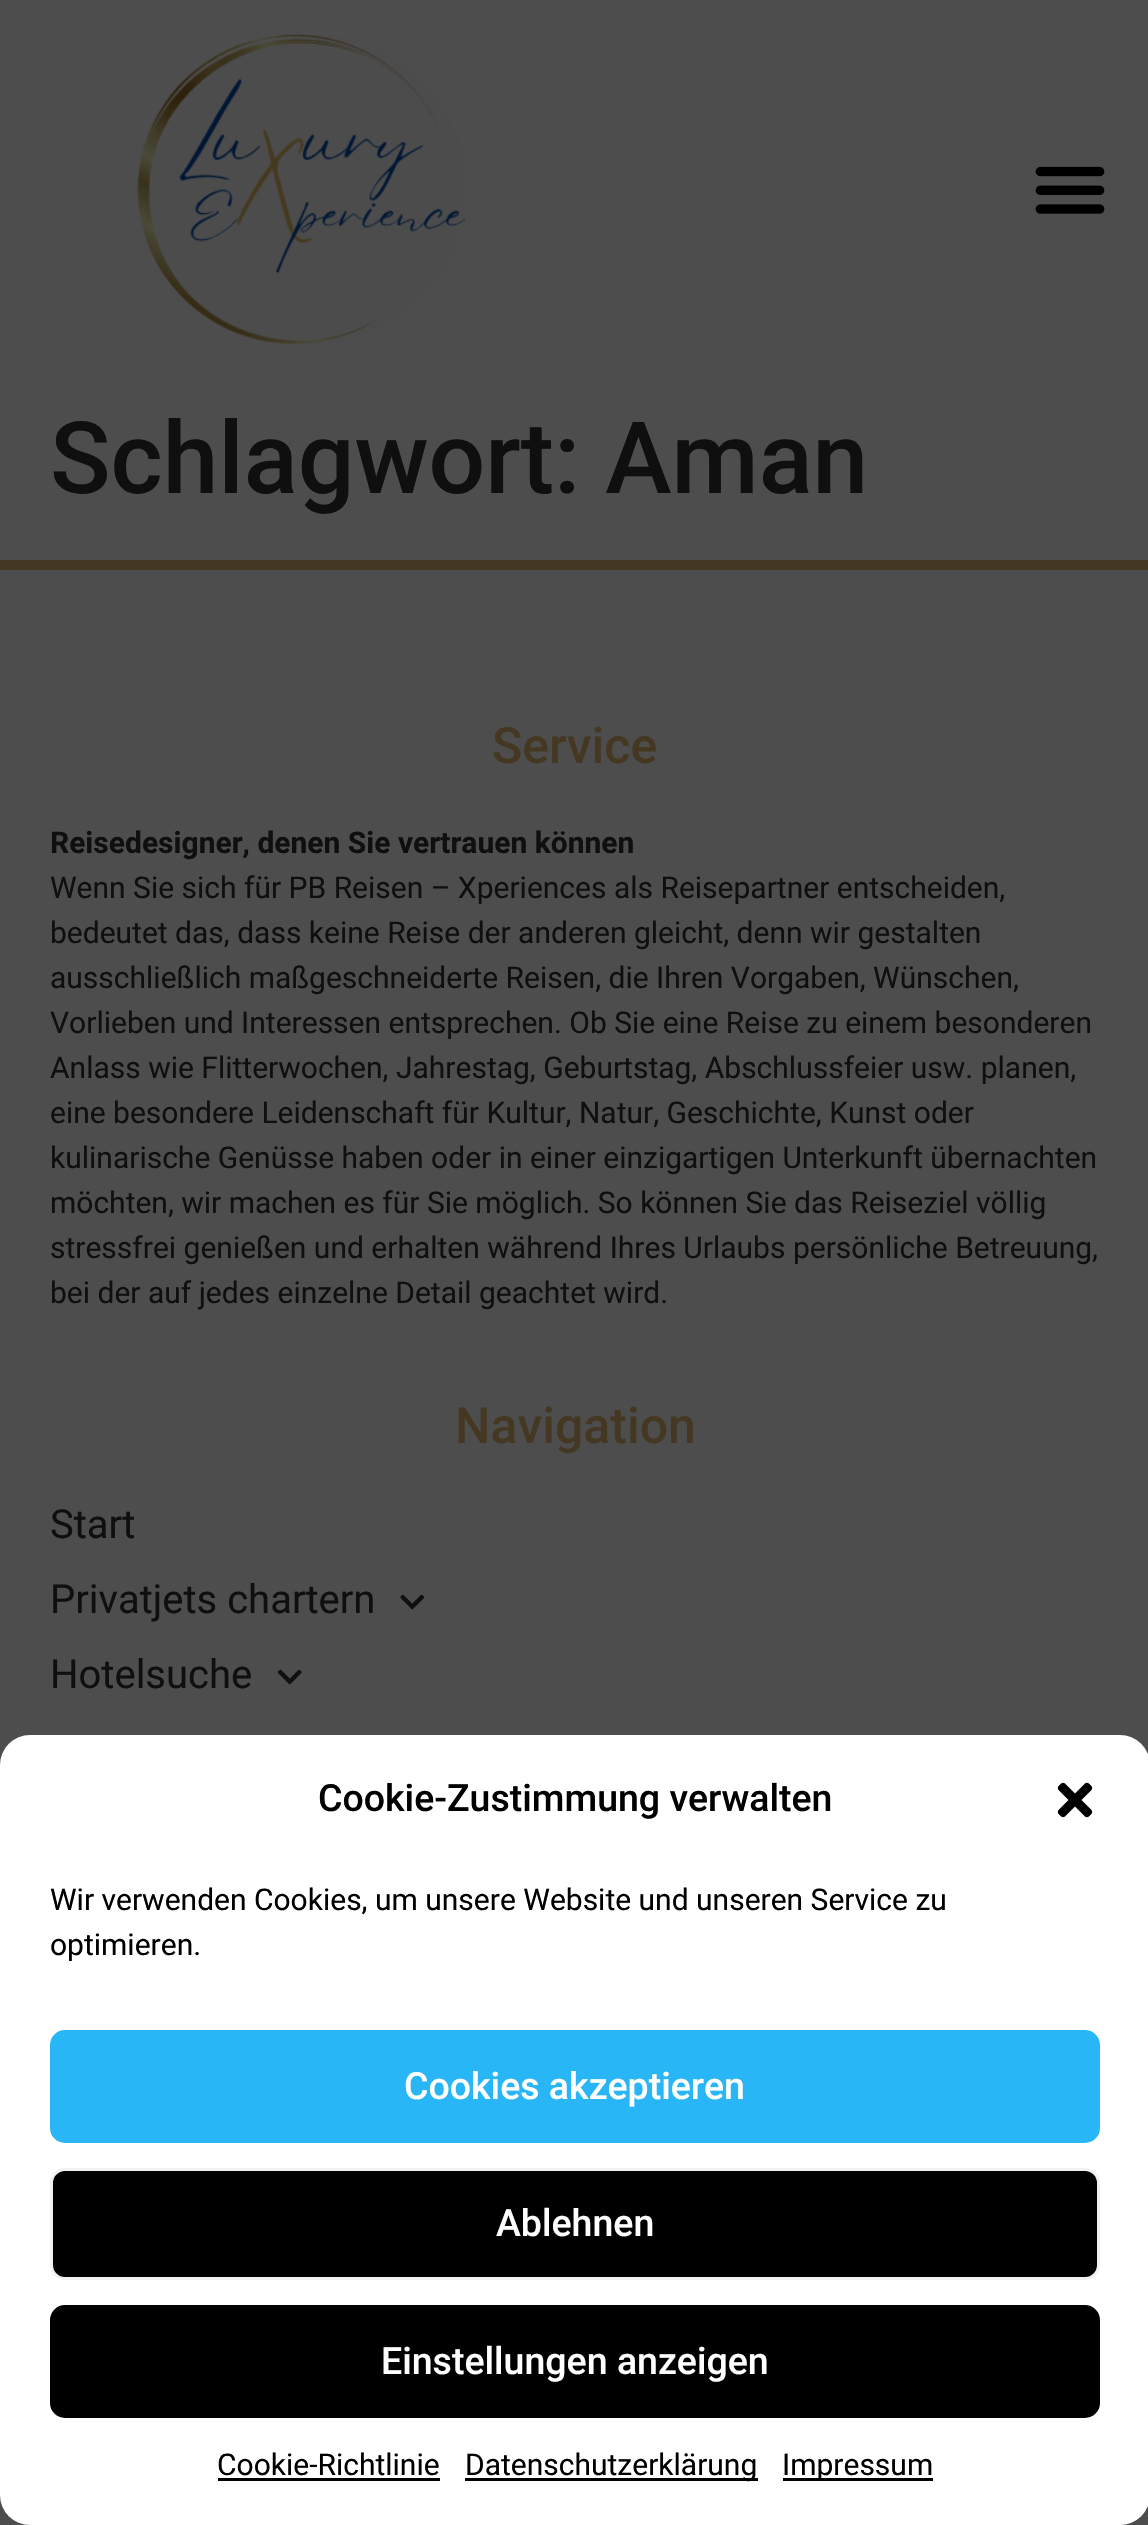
void draw(SkCanvas* canvas) {
    SkPaint paint;
    paint.setAntiAlias(true);
    auto face = [&](const char* family, int weight, float size, bool italic = false) {
        SkFontStyle style(weight, SkFontStyle::kNormal_Width,
            italic ? SkFontStyle::kItalic_Slant : SkFontStyle::kUpright_Slant);
        SkFont result(fontMgr->matchFamilyStyle(family, style), size);
        result.setSubpixel(true);
        return result;
    };
    auto write = [&](const char* s, float x, float y, const SkFont& font, SkColor color) {
        SkPaint ink(SkColor4f::FromColor(color));
        ink.setAntiAlias(true);
        canvas->drawString(s, x, y, font, ink);
    };
    auto block = [&](float x, float y, float w, float h, SkColor color) {
        SkPaint ink(SkColor4f::FromColor(color));
        ink.setAntiAlias(true);
        canvas->drawRect(SkRect::MakeXYWH(x, y, w, h), ink);
    };
    auto card = [&](float x, float y, float w, float h, float radius, SkColor color) {
        SkPaint ink(SkColor4f::FromColor(color));
        ink.setAntiAlias(true);
        canvas->drawRoundRect(SkRect::MakeXYWH(x, y, w, h), radius, radius, ink);
    };
    auto paste = [&](const char* path, float x, float y, float w, float h) {
        auto image = SkImages::DeferredFromEncodedData(SkData::MakeFromFileName(path));
        canvas->drawImageRect(image, SkRect::MakeXYWH(x, y, w, h), SkSamplingOptions());
    };
    canvas->clear(SkColorSetRGB(77, 77, 77));
    paste("pic1.png", 137, 34, 328, 311);
    paste("pic2.png", 1035, 166, 70, 48);
    auto kFont1 = face("Roboto", 500, 100);
    write("Schlagwort: Aman", 50, 493, kFont1, SkColorSetRGB(15, 15, 15));
    block(0, 560, 1148, 10, SkColorSetRGB(68, 56, 35));
    auto kFont2 = face("Roboto", 500, 50);
    write("Service", 492, 763, kFont2, SkColorSetRGB(68, 56, 35));
    auto kFont3 = face("Roboto", 700, 30);
    write("Reisedesigner, denen Sie vertrauen können", 50, 853, kFont3, SkColorSetRGB(15, 15, 15));
    auto kFont4 = face("Roboto", 400, 30);
    write("Wenn Sie sich für PB Reisen – Xperiences als Reisepartner entscheiden,", 50, 898, kFont4, SkColorSetRGB(15, 15, 15));
    write("bedeutet das, dass keine Reise der anderen gleicht, denn wir gestalten", 50, 943, kFont4, SkColorSetRGB(15, 15, 15));
    write("ausschließlich maßgeschneiderte Reisen, die Ihren Vorgaben, Wünschen,", 50, 988, kFont4, SkColorSetRGB(15, 15, 15));
    write("Vorlieben und Interessen entsprechen. Ob Sie eine Reise zu einem besonderen", 50, 1033, kFont4, SkColorSetRGB(15, 15, 15));
    write("Anlass wie Flitterwochen, Jahrestag, Geburtstag, Abschlussfeier usw. planen,", 50, 1078, kFont4, SkColorSetRGB(15, 15, 15));
    write("eine besondere Leidenschaft für Kultur, Natur, Geschichte, Kunst oder", 50, 1123, kFont4, SkColorSetRGB(15, 15, 15));
    write("kulinarische Genüsse haben oder in einer einzigartigen Unterkunft übernachten", 50, 1168, kFont4, SkColorSetRGB(15, 15, 15));
    write("möchten, wir machen es für Sie möglich. So können Sie das Reiseziel völlig", 50, 1213, kFont4, SkColorSetRGB(15, 15, 15));
    write("stressfrei genießen und erhalten während Ihres Urlaubs persönliche Betreuung,", 50, 1258, kFont4, SkColorSetRGB(15, 15, 15));
    write("bei der auf jedes einzelne Detail geachtet wird.", 50, 1303, kFont4, SkColorSetRGB(15, 15, 15));
    write("Navigation", 455, 1443, kFont2, SkColorSetRGB(68, 56, 35));
    auto kFont5 = face("Roboto", 400, 40);
    write("Start", 50, 1538, kFont5, SkColorSetRGB(15, 15, 15));
    write("Privatjets chartern", 50, 1613, kFont5, SkColorSetRGB(15, 15, 15));
    paste("pic3.png", 400, 1594, 25, 16);
    write("Hotelsuche", 50, 1688, kFont5, SkColorSetRGB(15, 15, 15));
    paste("pic4.png", 277, 1669, 25, 16);
    card(0, 1735, 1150, 790, 30, SK_ColorWHITE);
    auto kFont6 = face("Roboto", 500, 37.5f);
    write("Cookie-Zustimmung verwalten", 318, 1811, kFont6, SK_ColorBLACK);
    paste("pic5.png", 1057, 1782, 36, 36);
    write("Wir verwenden Cookies, um unsere Website und unseren Service zu", 50, 1910, kFont4, SK_ColorBLACK);
    write("optimieren.", 50, 1955, kFont4, SK_ColorBLACK);
    paint.setColor(SkColorSetRGB(41, 182, 246));
    canvas->drawRoundRect(SkRect::MakeXYWH(51.5f, 2031.5f, 1047, 110), 13.5f, 13.5f, paint);
    paint.setStyle(SkPaint::kStroke_Style);
    paint.setStrokeWidth(3);
    canvas->drawRoundRect(SkRect::MakeXYWH(51.5f, 2031.5f, 1047, 110), 13.5f, 13.5f, paint);
    write("Cookies akzeptieren", 404, 2099, kFont6, SK_ColorWHITE);
    paint.setStyle(SkPaint::kFill_Style);
    paint.setColor(SK_ColorBLACK);
    canvas->drawRoundRect(SkRect::MakeXYWH(51.5f, 2169.5f, 1047, 109), 13.5f, 13.5f, paint);
    paint.setStyle(SkPaint::kStroke_Style);
    paint.setColor(SkColorSetRGB(241, 241, 241));
    canvas->drawRoundRect(SkRect::MakeXYWH(51.5f, 2169.5f, 1047, 109), 13.5f, 13.5f, paint);
    write("Ablehnen", 496, 2236, kFont6, SK_ColorWHITE);
    paint.setStyle(SkPaint::kFill_Style);
    paint.setColor(SK_ColorBLACK);
    canvas->drawRoundRect(SkRect::MakeXYWH(51.5f, 2306.5f, 1047, 110), 13.5f, 13.5f, paint);
    paint.setStyle(SkPaint::kStroke_Style);
    canvas->drawRoundRect(SkRect::MakeXYWH(51.5f, 2306.5f, 1047, 110), 13.5f, 13.5f, paint);
    write("Einstellungen anzeigen", 381, 2374, kFont6, SK_ColorWHITE);
    write("Cookie-Richtlinie", 217, 2475, kFont4, SK_ColorBLACK);
    block(218, 2478, 222, 3, SK_ColorBLACK);
    block(465, 2478, 293, 3, SK_ColorBLACK);
    write("Datenschutzerklärung", 465, 2475, kFont4, SK_ColorBLACK);
    block(783, 2478, 150, 3, SK_ColorBLACK);
    write("Impressum", 782, 2475, kFont4, SK_ColorBLACK);
}
